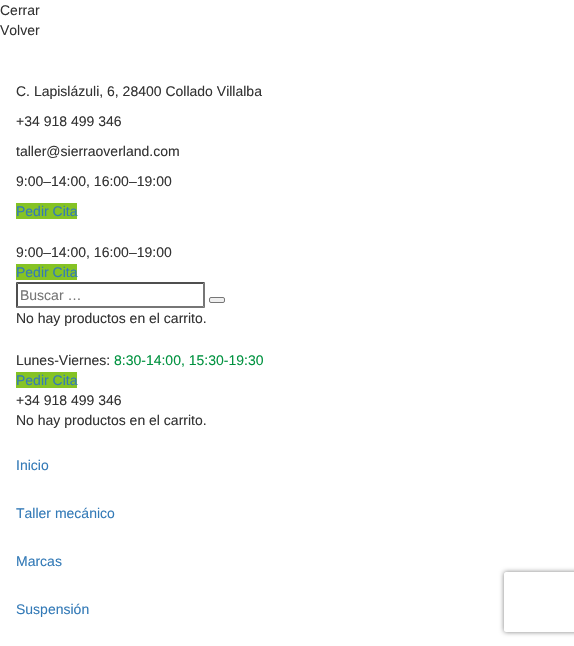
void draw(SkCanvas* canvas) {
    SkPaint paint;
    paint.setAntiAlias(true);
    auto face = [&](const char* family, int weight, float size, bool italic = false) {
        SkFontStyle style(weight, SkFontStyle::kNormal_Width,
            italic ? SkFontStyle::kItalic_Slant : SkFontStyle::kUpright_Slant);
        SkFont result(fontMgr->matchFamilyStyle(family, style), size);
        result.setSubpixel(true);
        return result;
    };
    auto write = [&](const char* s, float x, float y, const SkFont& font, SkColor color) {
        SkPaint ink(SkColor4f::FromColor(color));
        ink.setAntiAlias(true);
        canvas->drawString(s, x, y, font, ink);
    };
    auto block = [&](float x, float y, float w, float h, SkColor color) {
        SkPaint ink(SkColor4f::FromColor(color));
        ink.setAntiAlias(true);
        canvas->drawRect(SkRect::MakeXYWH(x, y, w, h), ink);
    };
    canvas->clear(SK_ColorWHITE);
    auto kFont1 = face("Liberation Sans", 400, 14);
    write("Cerrar", 0, 15, kFont1, SkColorSetRGB(51, 51, 51));
    write("Volver", 0, 35, kFont1, SkColorSetRGB(51, 51, 51));
    write("C. Lapislázuli, 6, 28400 Collado Villalba", 16, 96, kFont1, SkColorSetRGB(51, 51, 51));
    write("+34 918 499 346", 16, 126, kFont1, SkColorSetRGB(51, 51, 51));
    write("taller@sierraoverland.com", 16, 156, kFont1, SkColorSetRGB(51, 51, 51));
    write("9:00–14:00, 16:00–19:00", 16, 186, kFont1, SkColorSetRGB(51, 51, 51));
    block(16, 203, 61, 16, SkColorSetRGB(133, 195, 36));
    write("Pedir Cita", 16, 216, kFont1, SkColorSetRGB(51, 122, 183));
    write("9:00–14:00, 16:00–19:00", 16, 257, kFont1, SkColorSetRGB(51, 51, 51));
    block(16, 264, 61, 16, SkColorSetRGB(133, 195, 36));
    write("Pedir Cita", 16, 277, kFont1, SkColorSetRGB(51, 122, 183));
    paint.setColor(SkColorSetRGB(79, 79, 79));
    canvas->drawPath(SkPathBuilder().moveTo(16, 282).lineTo(205, 282).lineTo(203, 284).lineTo(18, 284).close().detach(), paint);
    paint.setColor(SkColorSetRGB(118, 118, 118));
    canvas->drawPath(SkPathBuilder().moveTo(205, 282).lineTo(205, 308).lineTo(203, 306).lineTo(203, 284).close().detach(), paint);
    canvas->drawPath(SkPathBuilder().moveTo(205, 308).lineTo(16, 308).lineTo(18, 306).lineTo(203, 306).close().detach(), paint);
    paint.setColor(SkColorSetRGB(79, 79, 79));
    canvas->drawPath(SkPathBuilder().moveTo(16, 308).lineTo(16, 282).lineTo(18, 284).lineTo(18, 306).close().detach(), paint);
    write("Buscar …", 20, 300, kFont1, SkColorSetRGB(117, 117, 117));
    paint.setColor(SkColorSetRGB(239, 239, 239));
    canvas->drawRoundRect(SkRect::MakeXYWH(209.5f, 297.5f, 15, 5), 1.5f, 1.5f, paint);
    paint.setStyle(SkPaint::kStroke_Style);
    paint.setStrokeWidth(1);
    paint.setColor(SkColorSetRGB(118, 118, 118));
    canvas->drawRoundRect(SkRect::MakeXYWH(209.5f, 297.5f, 15, 5), 1.5f, 1.5f, paint);
    write("No hay productos en el carrito.", 16, 323, kFont1, SkColorSetRGB(51, 51, 51));
    write("Lunes-Viernes:", 16, 365, kFont1, SkColorSetRGB(51, 51, 51));
    write("8:30-14:00, 15:30-19:30", 114, 365, kFont1, SkColorSetRGB(0, 146, 63));
    block(16, 372, 61, 16, SkColorSetRGB(133, 195, 36));
    write("Pedir Cita", 16, 385, kFont1, SkColorSetRGB(51, 122, 183));
    write("+34 918 499 346", 16, 405, kFont1, SkColorSetRGB(51, 51, 51));
    write("No hay productos en el carrito.", 16, 425, kFont1, SkColorSetRGB(51, 51, 51));
    write("Inicio", 16, 470, kFont1, SkColorSetRGB(51, 122, 183));
    write("Taller mecánico", 16, 518, kFont1, SkColorSetRGB(51, 122, 183));
    write("Marcas", 16, 566, kFont1, SkColorSetRGB(51, 122, 183));
    write("Suspensión", 16, 614, kFont1, SkColorSetRGB(51, 122, 183));
    canvas->save();
    canvas->clipPath(SkPathBuilder(SkPathFillType::kEvenOdd).moveTo(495, 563).lineTo(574, 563).lineTo(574, 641).lineTo(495, 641).close().moveTo(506, 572).lineTo(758, 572).cubicTo(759, 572, 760, 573, 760, 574).lineTo(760, 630).cubicTo(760, 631, 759, 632, 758, 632).lineTo(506, 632).cubicTo(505, 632, 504, 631, 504, 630).lineTo(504, 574).cubicTo(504, 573, 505, 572, 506, 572).close().detach(), true);
    paint.setStyle(SkPaint::kFill_Style);
    paint.setColor(SkColorSetRGB(128, 128, 128));
    paint.setMaskFilter(SkMaskFilter::MakeBlur(kNormal_SkBlurStyle, 2.5f));
    canvas->drawRoundRect(SkRect::MakeXYWH(504, 572, 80, 60), 2, 2, paint);
    paint.setMaskFilter(nullptr);
    canvas->restore();
}
